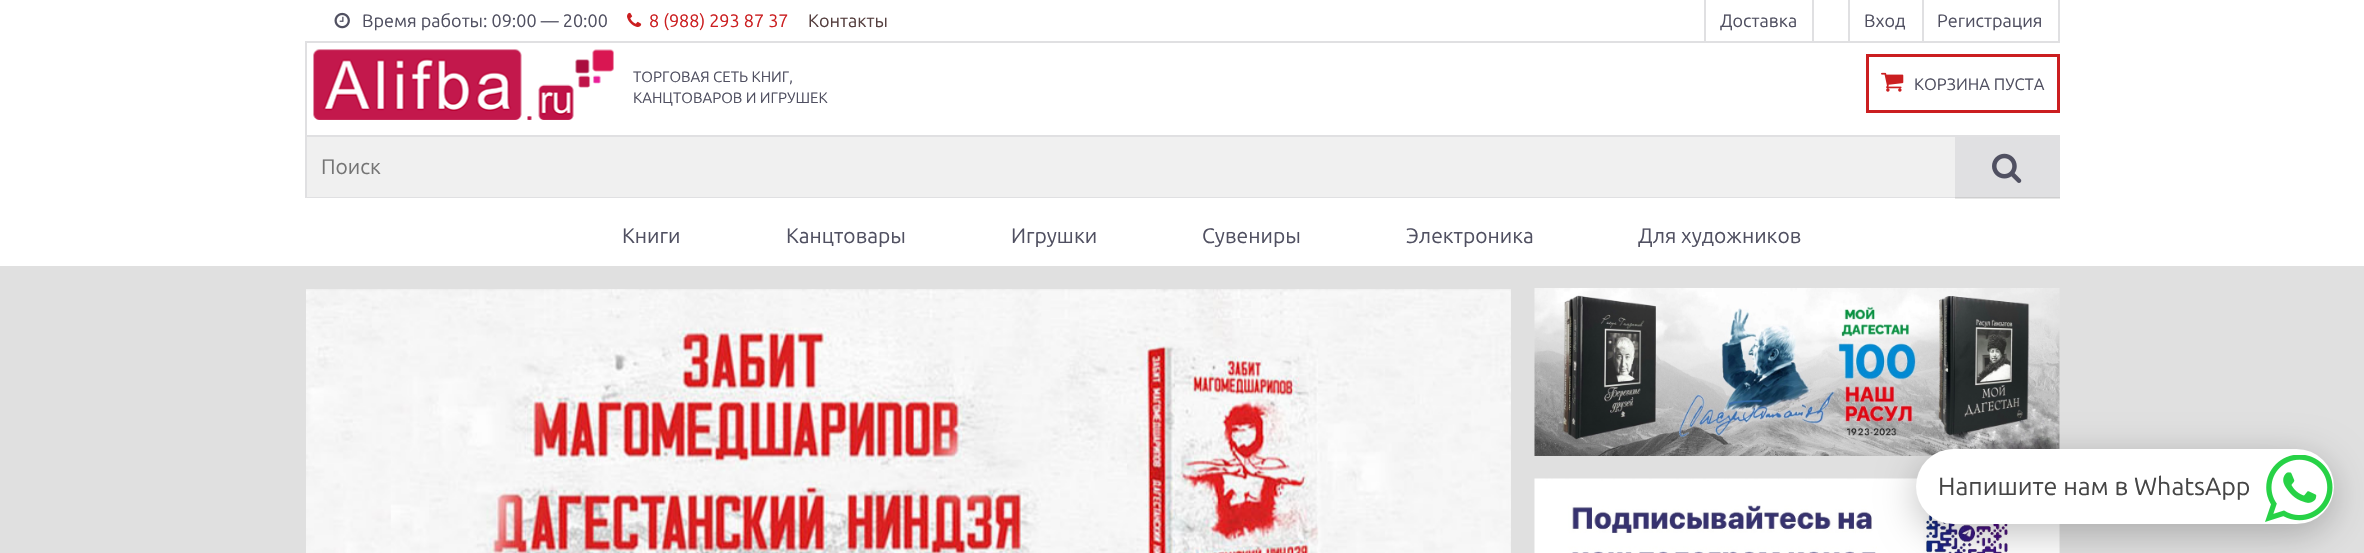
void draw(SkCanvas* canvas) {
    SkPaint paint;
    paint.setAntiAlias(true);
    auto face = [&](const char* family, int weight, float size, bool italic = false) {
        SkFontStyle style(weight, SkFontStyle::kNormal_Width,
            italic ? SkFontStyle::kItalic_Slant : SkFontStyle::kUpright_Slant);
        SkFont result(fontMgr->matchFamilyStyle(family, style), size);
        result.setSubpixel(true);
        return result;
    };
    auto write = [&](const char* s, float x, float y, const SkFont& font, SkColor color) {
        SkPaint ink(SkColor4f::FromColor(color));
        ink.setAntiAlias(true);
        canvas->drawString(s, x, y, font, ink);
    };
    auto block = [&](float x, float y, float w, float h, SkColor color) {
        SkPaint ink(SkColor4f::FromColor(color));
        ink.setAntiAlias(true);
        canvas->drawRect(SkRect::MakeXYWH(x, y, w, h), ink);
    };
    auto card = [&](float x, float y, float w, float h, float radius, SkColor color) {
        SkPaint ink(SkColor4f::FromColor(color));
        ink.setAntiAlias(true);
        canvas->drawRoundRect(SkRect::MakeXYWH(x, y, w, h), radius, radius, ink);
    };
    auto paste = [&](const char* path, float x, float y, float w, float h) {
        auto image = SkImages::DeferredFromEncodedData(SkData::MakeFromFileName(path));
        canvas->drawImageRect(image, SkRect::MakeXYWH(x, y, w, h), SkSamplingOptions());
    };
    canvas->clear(SkColorSetRGB(224, 224, 224));
    block(0, 0, 2364, 266, SK_ColorWHITE);
    block(305, 135, 1755, 2, SkColorSetRGB(224, 224, 226));
    block(305, 42, 2, 155, SkColorSetRGB(224, 224, 226));
    block(305, 41, 1755, 2, SkColorSetRGB(224, 224, 226));
    paste("pic1.png", 334, 12, 16, 17);
    auto kFont1 = face("Ubuntu", 400, 18);
    write("Время работы: 09:00 — 20:00", 362, 27, kFont1, SkColorSetRGB(80, 80, 97));
    paste("pic2.png", 627, 12, 15, 15);
    write("8 (988) 293 87 37", 649, 27, kFont1, SkColorSetRGB(203, 30, 32));
    write("Контакты", 808, 27, kFont1, SkColorSetRGB(85, 63, 63));
    block(1704, 0, 2, 41, SkColorSetRGB(224, 224, 226));
    write("Доставка", 1720, 27, kFont1, SkColorSetRGB(80, 80, 97));
    block(1812, 0, 2, 41, SkColorSetRGB(224, 224, 226));
    block(1848, 0, 2, 41, SkColorSetRGB(224, 224, 226));
    write("Вход", 1864, 27, kFont1, SkColorSetRGB(80, 80, 97));
    block(2058, 0, 2, 41, SkColorSetRGB(224, 224, 226));
    block(1922, 0, 2, 41, SkColorSetRGB(224, 224, 226));
    write("Регистрация", 1937, 27, kFont1, SkColorSetRGB(80, 80, 97));
    paste("pic3.png", 313, 49, 301, 71);
    auto kFont2 = face("Ubuntu", 400, 15);
    write("ТОРГОВАЯ СЕТЬ КНИГ,", 633, 82, kFont2, SkColorSetRGB(80, 80, 97));
    write("КАНЦТОВАРОВ И ИГРУШЕК", 633, 103, kFont2, SkColorSetRGB(80, 80, 97));
    paint.setStyle(SkPaint::kStroke_Style);
    paint.setStrokeWidth(3);
    paint.setColor(SkColorSetRGB(203, 30, 32));
    canvas->drawRect(SkRect::MakeXYWH(1867.5f, 55.5f, 191, 56), paint);
    paste("pic4.png", 1881, 72, 23, 20);
    auto kFont3 = face("Ubuntu", 400, 16.5f);
    write("КОРЗИНА ПУСТА", 1914, 90, kFont3, SkColorSetRGB(80, 80, 97));
    block(305, 197, 1650, 1, SkColorSetRGB(224, 224, 226));
    block(307, 137, 1648, 60, SkColorSetRGB(240, 240, 240));
    auto kFont4 = face("Ubuntu", 400, 21);
    write("Поиск", 321, 174, kFont4, SkColorSetRGB(117, 117, 117));
    block(1955, 137, 105, 60, SkColorSetRGB(224, 224, 226));
    block(1955, 197, 105, 1, SkColorSetRGB(206, 206, 207));
    paste("pic5.png", 1992, 153, 30, 30);
    block(1955, 198, 105, 1, SkColorSetRGB(231, 231, 231));
    write("Книги", 622, 243, kFont4, SkColorSetRGB(80, 80, 97));
    write("Канцтовары", 786, 243, kFont4, SkColorSetRGB(80, 80, 97));
    write("Игрушки", 1011, 243, kFont4, SkColorSetRGB(80, 80, 97));
    write("Сувениры", 1202, 243, kFont4, SkColorSetRGB(80, 80, 97));
    write("Электроника", 1406, 243, kFont4, SkColorSetRGB(80, 80, 97));
    write("Для художников", 1638, 243, kFont4, SkColorSetRGB(80, 80, 97));
    paste("pic6.png", 306, 289, 1205, 264);
    paste("pic7.png", 1534, 288, 526, 168);
    paste("pic8.png", 1534, 478, 526, 75);
    paint.setStyle(SkPaint::kFill_Style);
    paint.setColor(SkColorSetARGB(64, 0, 0, 0));
    paint.setMaskFilter(SkMaskFilter::MakeBlur(kNormal_SkBlurStyle, 19));
    canvas->drawRoundRect(SkRect::MakeXYWH(1916, 458, 418, 75), 37.5f, 37.5f, paint);
    paint.setMaskFilter(nullptr);
    card(1916, 449, 418, 75, 37.5f, SK_ColorWHITE);
    auto kFont5 = face("Ubuntu", 400, 25);
    write("Напишите нам в WhatsApp", 1938, 495, kFont5, SkColorSetRGB(69, 69, 69));
    paste("pic9.png", 2265, 455, 68, 67);
}
